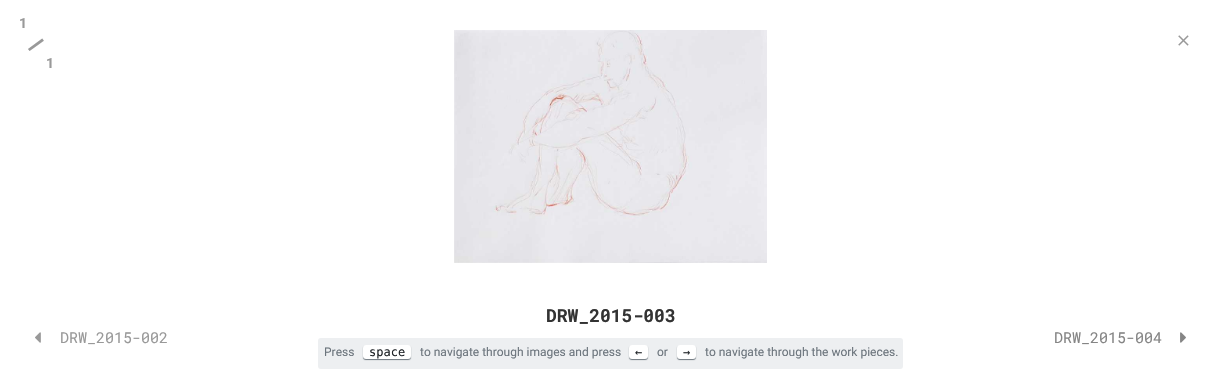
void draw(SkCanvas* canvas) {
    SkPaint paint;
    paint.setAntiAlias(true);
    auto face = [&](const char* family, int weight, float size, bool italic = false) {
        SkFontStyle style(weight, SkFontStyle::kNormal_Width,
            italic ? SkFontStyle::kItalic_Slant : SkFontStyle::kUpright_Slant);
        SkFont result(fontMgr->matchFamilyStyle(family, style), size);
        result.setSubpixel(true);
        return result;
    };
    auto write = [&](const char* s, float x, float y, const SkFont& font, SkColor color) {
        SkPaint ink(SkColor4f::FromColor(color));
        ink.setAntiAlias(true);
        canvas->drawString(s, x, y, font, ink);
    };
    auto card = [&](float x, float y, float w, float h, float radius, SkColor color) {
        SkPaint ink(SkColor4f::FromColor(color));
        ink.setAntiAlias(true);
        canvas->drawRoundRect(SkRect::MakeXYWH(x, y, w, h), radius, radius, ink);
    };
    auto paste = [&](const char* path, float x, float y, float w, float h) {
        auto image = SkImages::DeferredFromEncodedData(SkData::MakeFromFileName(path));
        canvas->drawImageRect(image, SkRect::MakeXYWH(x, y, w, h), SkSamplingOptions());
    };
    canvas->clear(SK_ColorWHITE);
    auto kFont1 = face("Roboto", 700, 14);
    write("1", 19, 28, kFont1, SkColorSetRGB(153, 153, 153));
    auto kFont2 = face("Roboto", 400, 36);
    canvas->save();
    canvas->rotate(-36, 34, 62);
    write("–", 34, 62, kFont2, SkColorSetRGB(153, 153, 153));
    canvas->restore();
    write("1", 46, 68, kFont1, SkColorSetRGB(153, 153, 153));
    paste("pic1.png", 454, 30, 313, 233);
    auto kFont3 = face("Roboto Mono", 700, 18);
    write("DRW_2015-003", 546, 322, kFont3, SkColorSetRGB(51, 51, 51));
    card(318, 338, 585, 31, 3, SkColorSetRGB(237, 239, 241));
    auto kFont4 = face("Roboto", 400, 12);
    write("Press", 324, 356, kFont4, SkColorSetRGB(108, 117, 125));
    paint.setColor(SkColorSetRGB(108, 117, 125));
    paint.setMaskFilter(SkMaskFilter::MakeBlur(kNormal_SkBlurStyle, 0.5f));
    canvas->drawRoundRect(SkRect::MakeXYWH(363, 346, 48, 14), 3, 3, paint);
    paint.setMaskFilter(nullptr);
    card(363, 345, 48, 14, 3, SK_ColorWHITE);
    auto kFont5 = face("DejaVu Sans Mono", 400, 12);
    write("space", 369, 356, kFont5, SkColorSetRGB(33, 37, 41));
    write("to navigate through images and press", 420, 356, kFont4, SkColorSetRGB(108, 117, 125));
    paint.setMaskFilter(SkMaskFilter::MakeBlur(kNormal_SkBlurStyle, 0.5f));
    canvas->drawRoundRect(SkRect::MakeXYWH(629, 346, 19, 14), 3, 3, paint);
    paint.setMaskFilter(nullptr);
    card(629, 345, 19, 14, 3, SK_ColorWHITE);
    write("←", 635, 356, kFont5, SkColorSetRGB(33, 37, 41));
    write("or", 657, 356, kFont4, SkColorSetRGB(108, 117, 125));
    paint.setMaskFilter(SkMaskFilter::MakeBlur(kNormal_SkBlurStyle, 0.5f));
    canvas->drawRoundRect(SkRect::MakeXYWH(677, 346, 19, 14), 3, 3, paint);
    paint.setMaskFilter(nullptr);
    card(677, 345, 19, 14, 3, SK_ColorWHITE);
    write("→", 683, 356, kFont5, SkColorSetRGB(33, 37, 41));
    write("to navigate through the work pieces.", 705, 356, kFont4, SkColorSetRGB(108, 117, 125));
    paste("pic2.png", 1178, 35, 11, 11);
    paste("pic3.png", 35, 332, 6, 11);
    auto kFont6 = face("Roboto Mono", 400, 15);
    write("DRW_2015-002", 60, 343, kFont6, SkColorSetRGB(153, 153, 153));
    write("DRW_2015-004", 1054, 343, kFont6, SkColorSetRGB(133, 133, 133));
    paste("pic4.png", 1180, 332, 6, 11);
}
